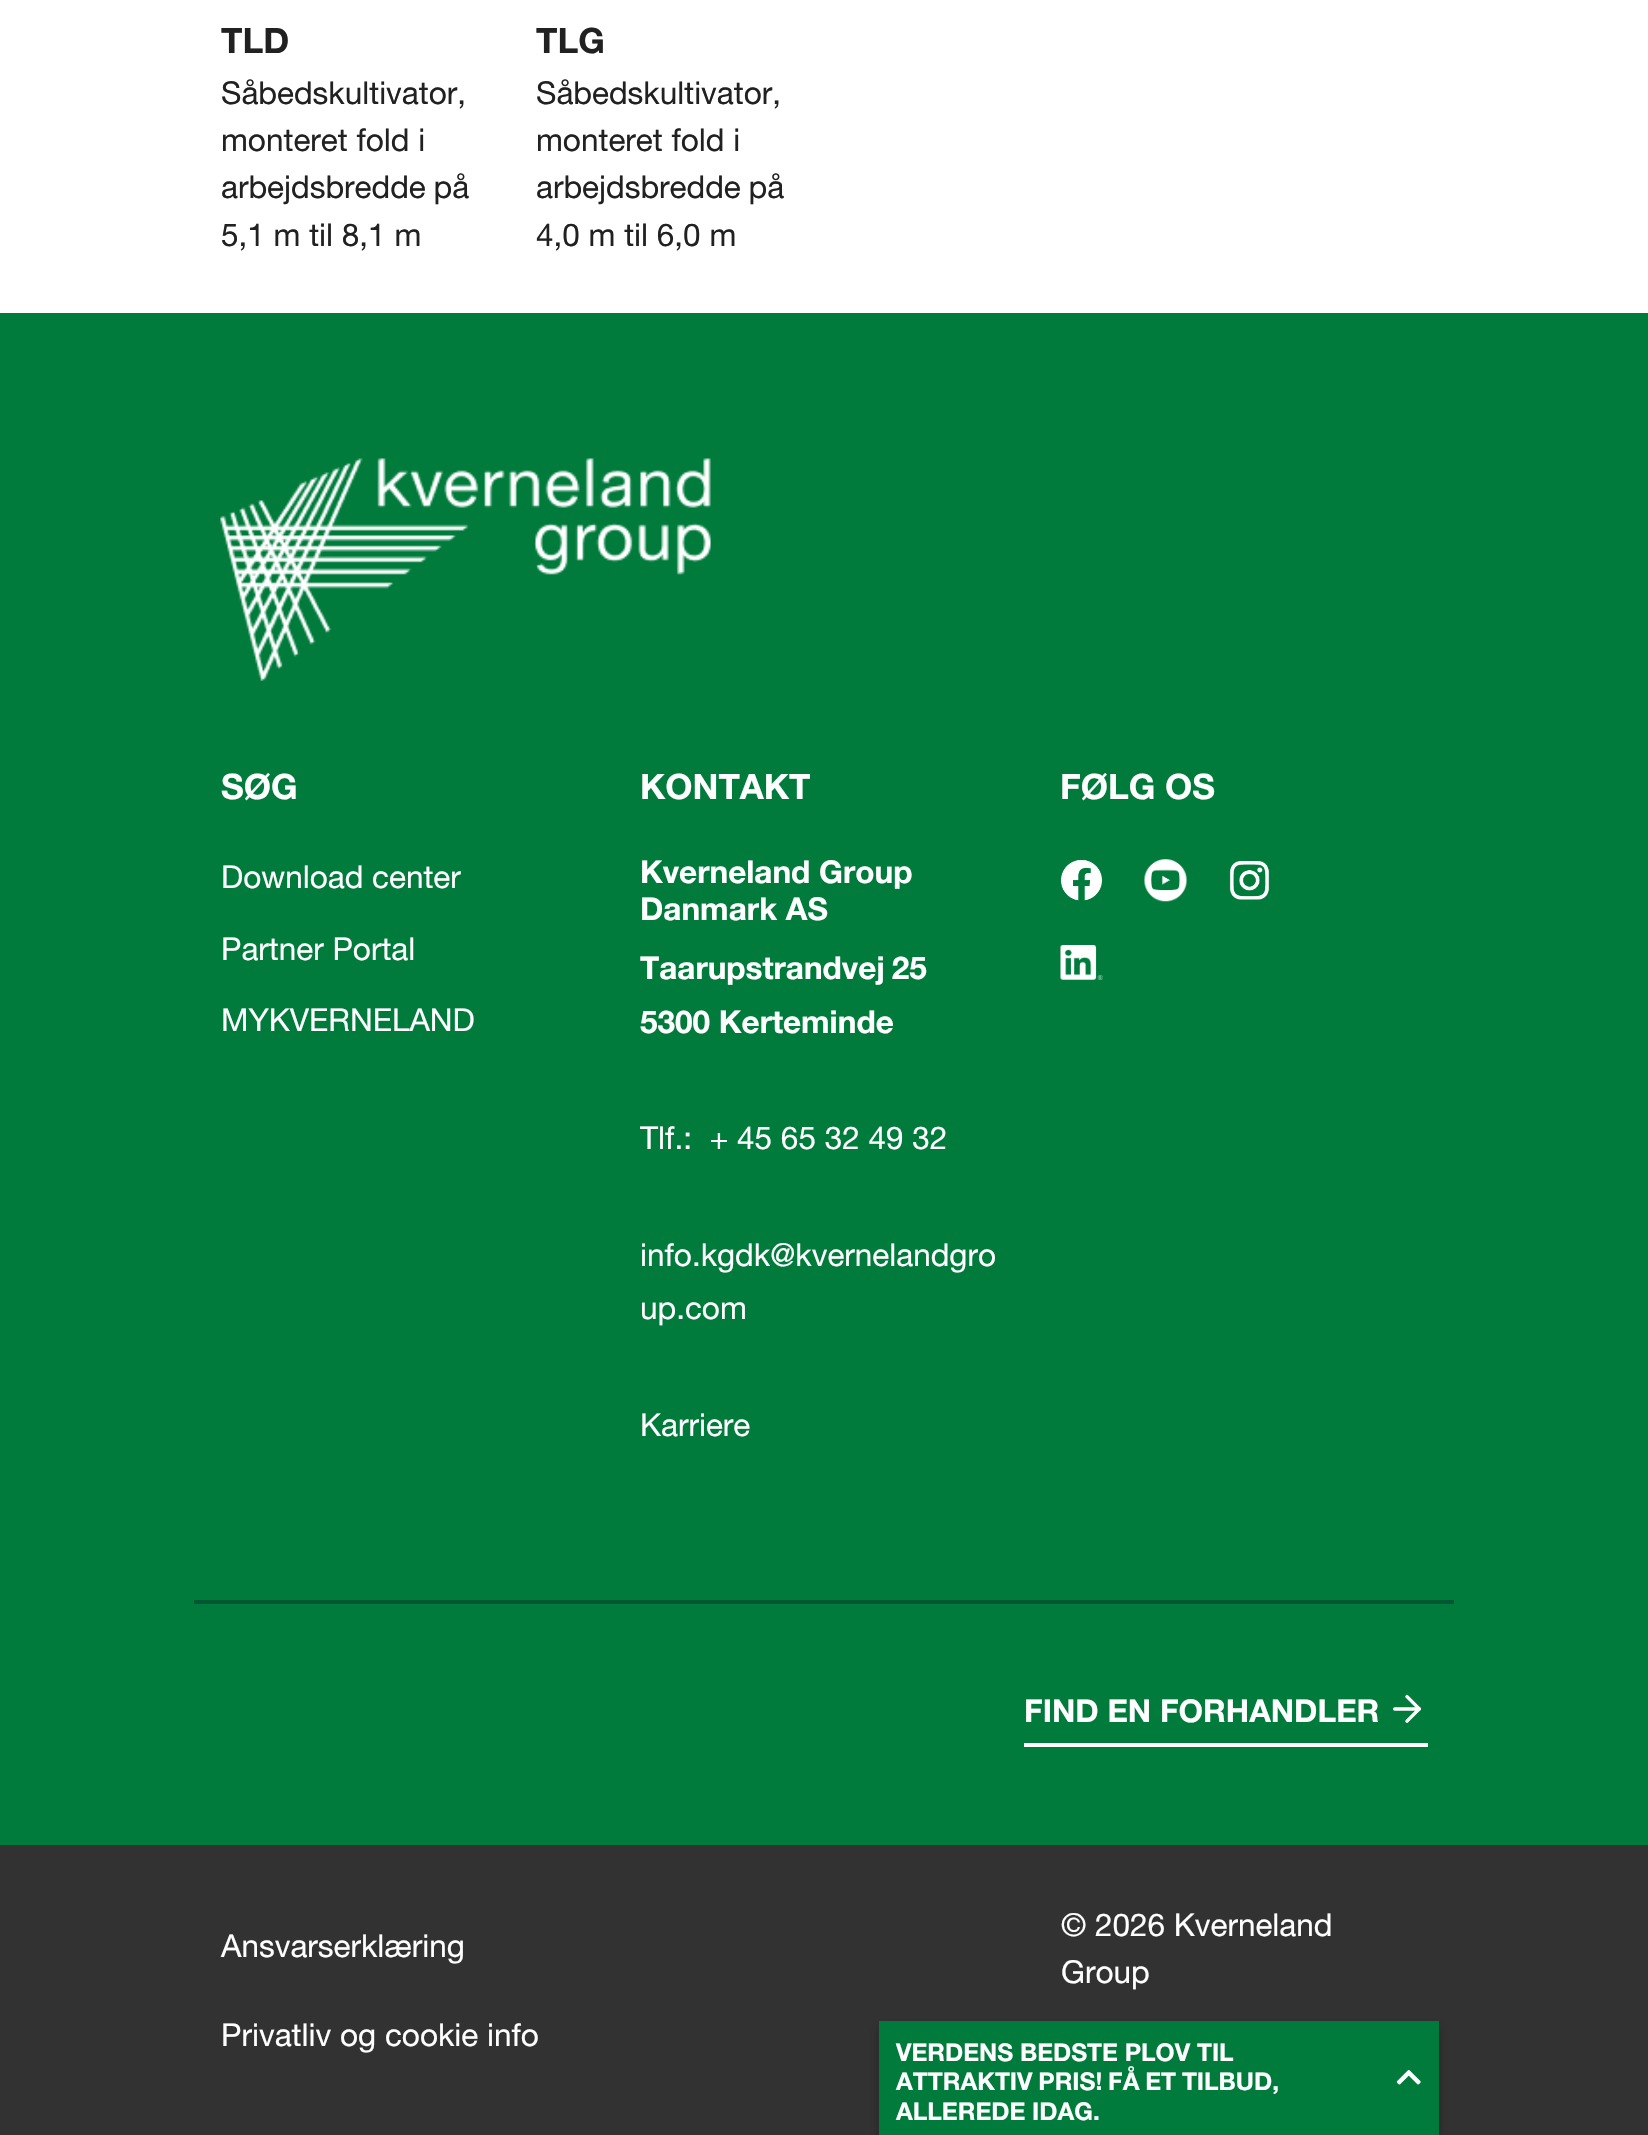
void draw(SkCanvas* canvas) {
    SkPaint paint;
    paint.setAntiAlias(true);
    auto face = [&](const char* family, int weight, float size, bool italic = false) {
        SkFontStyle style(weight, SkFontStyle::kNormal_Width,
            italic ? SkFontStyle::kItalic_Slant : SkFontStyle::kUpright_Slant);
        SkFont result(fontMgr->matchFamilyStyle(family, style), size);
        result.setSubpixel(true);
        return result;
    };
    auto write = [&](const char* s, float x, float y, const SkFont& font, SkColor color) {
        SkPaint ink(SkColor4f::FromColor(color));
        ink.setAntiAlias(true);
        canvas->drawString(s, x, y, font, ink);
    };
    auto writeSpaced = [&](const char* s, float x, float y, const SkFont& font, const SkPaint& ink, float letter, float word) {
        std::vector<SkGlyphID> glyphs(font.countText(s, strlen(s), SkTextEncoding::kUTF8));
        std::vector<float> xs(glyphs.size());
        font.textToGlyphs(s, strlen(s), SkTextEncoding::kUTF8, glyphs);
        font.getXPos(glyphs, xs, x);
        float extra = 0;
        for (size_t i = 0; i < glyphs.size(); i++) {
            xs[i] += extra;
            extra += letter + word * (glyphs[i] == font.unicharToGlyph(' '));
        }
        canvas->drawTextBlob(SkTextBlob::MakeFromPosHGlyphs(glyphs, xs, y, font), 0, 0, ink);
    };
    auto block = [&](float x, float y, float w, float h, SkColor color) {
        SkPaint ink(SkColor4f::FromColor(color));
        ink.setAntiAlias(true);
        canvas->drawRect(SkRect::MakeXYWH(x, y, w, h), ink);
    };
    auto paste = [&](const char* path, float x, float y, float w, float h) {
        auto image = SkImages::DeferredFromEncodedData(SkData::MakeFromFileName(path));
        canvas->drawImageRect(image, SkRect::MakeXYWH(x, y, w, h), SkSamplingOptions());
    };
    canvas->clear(SK_ColorWHITE);
    auto kFont1 = face("Helvetica Neue", 700, 35);
    write("TLD", 221, 53, kFont1, SkColorSetRGB(33, 33, 33));
    auto kFont2 = face("Helvetica Neue", 400, 31.5f);
    write("Såbedskultivator,", 221, 104, kFont2, SkColorSetRGB(33, 33, 33));
    write("monteret fold i", 221, 151, kFont2, SkColorSetRGB(33, 33, 33));
    paint.setColor(SkColorSetRGB(33, 33, 33));
    writeSpaced("arbejdsbredde på", 221, 198, kFont2, paint, 0, -1);
    write("5,1 m til 8,1 m", 221, 246, kFont2, SkColorSetRGB(33, 33, 33));
    write("TLG", 536, 53, kFont1, SkColorSetRGB(33, 33, 33));
    write("Såbedskultivator,", 536, 104, kFont2, SkColorSetRGB(33, 33, 33));
    write("monteret fold i", 536, 151, kFont2, SkColorSetRGB(33, 33, 33));
    writeSpaced("arbejdsbredde på", 536, 198, kFont2, paint, 0, -1);
    write("4,0 m til 6,0 m", 536, 246, kFont2, SkColorSetRGB(33, 33, 33));
    block(0, 313, 1648, 1532, SkColorSetRGB(0, 123, 59));
    paste("pic1.png", 220, 458, 491, 223);
    write("SØG", 221, 799, kFont1, SK_ColorWHITE);
    write("Download center", 221, 888, kFont2, SK_ColorWHITE);
    write("Partner Portal", 221, 960, kFont2, SK_ColorWHITE);
    write("MYKVERNELAND", 221, 1031, kFont2, SK_ColorWHITE);
    write("KONTAKT", 640, 799, kFont1, SK_ColorWHITE);
    auto kFont3 = face("Helvetica Neue", 700, 31.5f);
    write("Kverneland Group", 640, 883, kFont3, SK_ColorWHITE);
    write("Danmark AS", 640, 920, kFont3, SK_ColorWHITE);
    paint.setColor(SK_ColorWHITE);
    writeSpaced("Taarupstrandvej 25", 640, 979, kFont3, paint, 0, -2);
    write("5300 Kerteminde", 640, 1033, kFont3, SK_ColorWHITE);
    write("Tlf.:  + 45 65 32 49 32", 640, 1149, kFont2, SK_ColorWHITE);
    write("info.kgdk@kvernelandgro", 640, 1266, kFont2, SK_ColorWHITE);
    write("up.com", 640, 1319, kFont2, SK_ColorWHITE);
    write("Karriere", 640, 1436, kFont2, SK_ColorWHITE);
    write("FØLG OS", 1060, 799, kFont1, SK_ColorWHITE);
    paste("pic2.png", 1060, 860, 43, 41);
    paste("pic3.png", 1144, 859, 43, 43);
    paste("pic4.png", 1229, 861, 41, 39);
    paste("pic5.png", 1060, 945, 43, 35);
    block(194, 1600, 1260, 4, SkColorSetRGB(0, 88, 51));
    block(1024, 1743, 404, 4, SK_ColorWHITE);
    write("FIND EN FORHANDLER", 1024, 1722, kFont3, SK_ColorWHITE);
    paste("pic6.png", 1393, 1694, 28, 29);
    block(0, 1845, 1648, 290, SkColorSetRGB(50, 50, 50));
    write("Ansvarserklæring", 221, 1957, kFont2, SK_ColorWHITE);
    write("Privatliv og cookie info", 221, 2046, kFont2, SK_ColorWHITE);
    write("© 2026 Kverneland", 1061, 1936, kFont2, SK_ColorWHITE);
    write("Group", 1061, 1983, kFont2, SK_ColorWHITE);
    paint.setColor(SkColorSetARGB(59, 0, 0, 0));
    paint.setMaskFilter(SkMaskFilter::MakeBlur(kNormal_SkBlurStyle, 5));
    canvas->drawRect(SkRect::MakeXYWH(879, 2027, 560, 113), paint);
    paint.setMaskFilter(nullptr);
    block(879, 2021, 560, 114, SkColorSetRGB(0, 123, 59));
    auto kFont4 = face("Helvetica Neue", 700, 24.5f);
    write("VERDENS BEDSTE PLOV TIL", 896, 2061, kFont4, SK_ColorWHITE);
    paint.setColor(SK_ColorWHITE);
    writeSpaced("ATTRAKTIV PRIS! FÅ ET TILBUD,", 896, 2090, kFont4, paint, 0, -1);
    write("ALLEREDE IDAG.", 896, 2120, kFont4, SK_ColorWHITE);
    paste("pic7.png", 1396, 2070, 25, 15);
}
